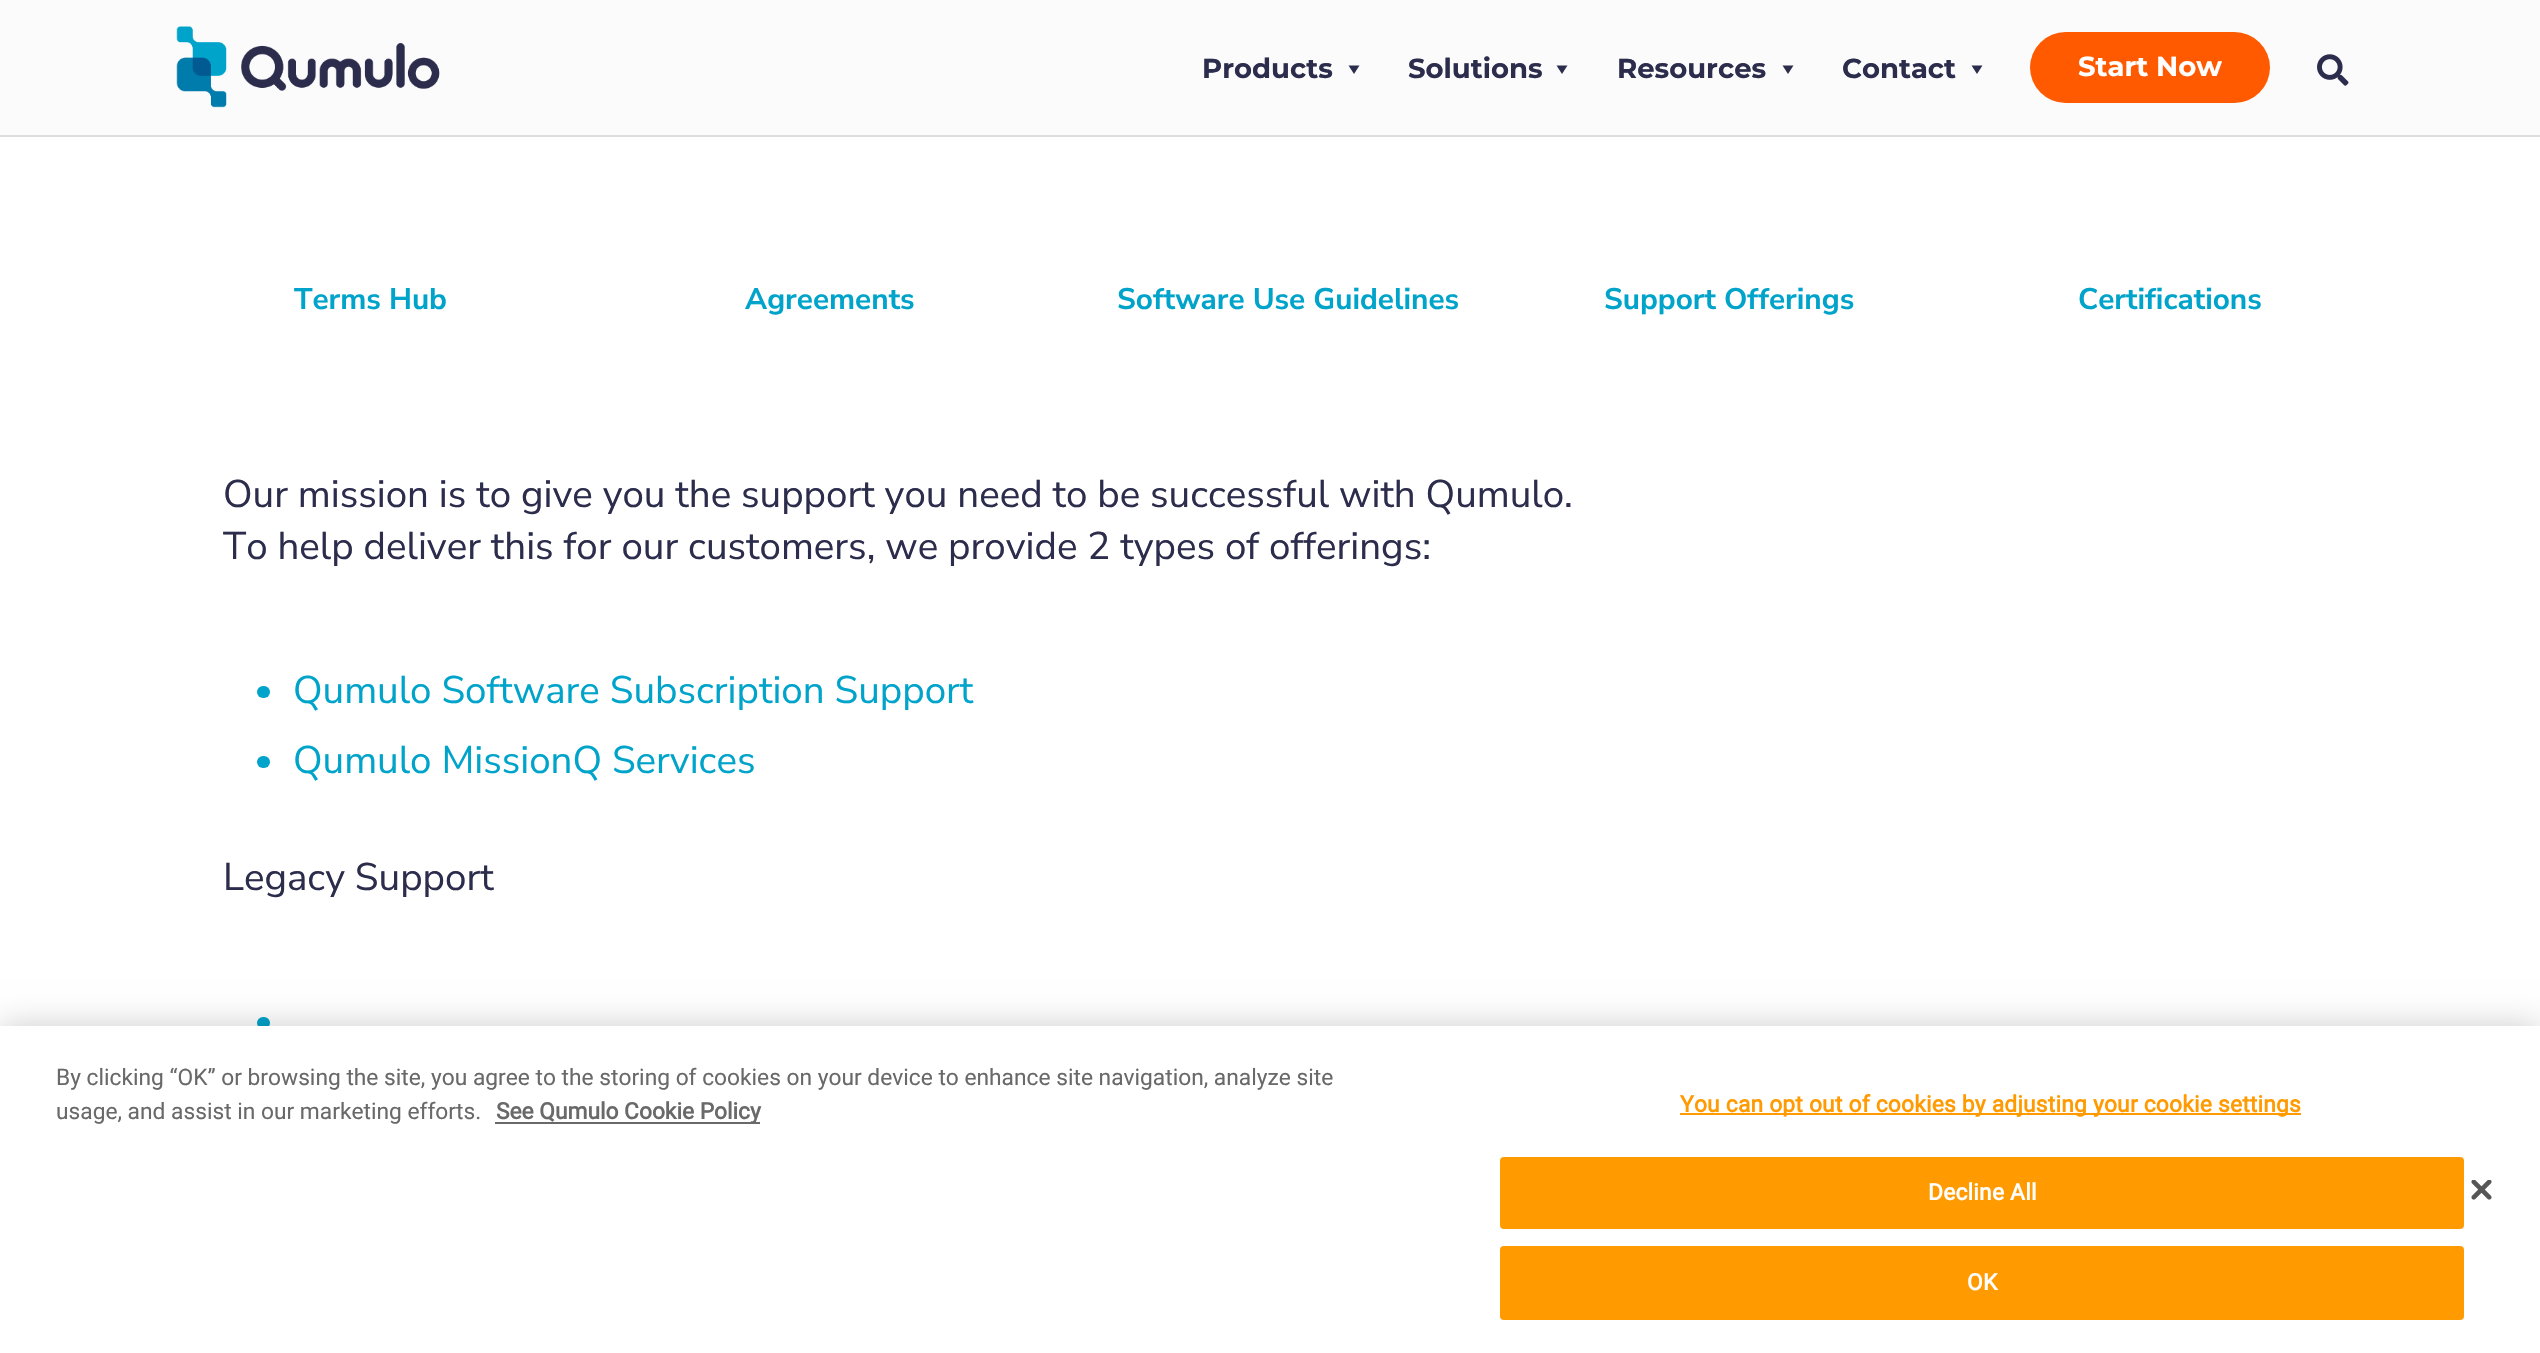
void draw(SkCanvas* canvas) {
    SkPaint paint;
    paint.setAntiAlias(true);
    auto face = [&](const char* family, int weight, float size, bool italic = false) {
        SkFontStyle style(weight, SkFontStyle::kNormal_Width,
            italic ? SkFontStyle::kItalic_Slant : SkFontStyle::kUpright_Slant);
        SkFont result(fontMgr->matchFamilyStyle(family, style), size);
        result.setSubpixel(true);
        return result;
    };
    auto write = [&](const char* s, float x, float y, const SkFont& font, SkColor color) {
        SkPaint ink(SkColor4f::FromColor(color));
        ink.setAntiAlias(true);
        canvas->drawString(s, x, y, font, ink);
    };
    auto writeSpaced = [&](const char* s, float x, float y, const SkFont& font, const SkPaint& ink, float letter, float word) {
        std::vector<SkGlyphID> glyphs(font.countText(s, strlen(s), SkTextEncoding::kUTF8));
        std::vector<float> xs(glyphs.size());
        font.textToGlyphs(s, strlen(s), SkTextEncoding::kUTF8, glyphs);
        font.getXPos(glyphs, xs, x);
        float extra = 0;
        for (size_t i = 0; i < glyphs.size(); i++) {
            xs[i] += extra;
            extra += letter + word * (glyphs[i] == font.unicharToGlyph(' '));
        }
        canvas->drawTextBlob(SkTextBlob::MakeFromPosHGlyphs(glyphs, xs, y, font), 0, 0, ink);
    };
    auto block = [&](float x, float y, float w, float h, SkColor color) {
        SkPaint ink(SkColor4f::FromColor(color));
        ink.setAntiAlias(true);
        canvas->drawRect(SkRect::MakeXYWH(x, y, w, h), ink);
    };
    auto card = [&](float x, float y, float w, float h, float radius, SkColor color) {
        SkPaint ink(SkColor4f::FromColor(color));
        ink.setAntiAlias(true);
        canvas->drawRoundRect(SkRect::MakeXYWH(x, y, w, h), radius, radius, ink);
    };
    auto paste = [&](const char* path, float x, float y, float w, float h) {
        auto image = SkImages::DeferredFromEncodedData(SkData::MakeFromFileName(path));
        canvas->drawImageRect(image, SkRect::MakeXYWH(x, y, w, h), SkSamplingOptions());
    };
    canvas->clear(SK_ColorWHITE);
    block(0, 0, 2540, 135, SkColorSetRGB(251, 251, 251));
    block(0, 135, 2540, 2, SkColorSetRGB(221, 221, 221));
    paste("pic1.png", 176, 26, 264, 82);
    auto kFont1 = face("Montserrat", 700, 27.5f);
    write("Products", 1202, 78, kFont1, SkColorSetRGB(44, 44, 76));
    paint.setColor(SkColorSetRGB(44, 44, 76));
    canvas->drawPath(SkPathBuilder().moveTo(1359.5f, 65.5f).lineTo(1354, 74).lineTo(1348.5f, 65.5f).close().detach(), paint);
    write("Solutions", 1408, 78, kFont1, SkColorSetRGB(44, 44, 76));
    canvas->drawPath(SkPathBuilder().moveTo(1567.5f, 65.5f).lineTo(1562, 74).lineTo(1556.5f, 65.5f).close().detach(), paint);
    write("Resources", 1617, 78, kFont1, SkColorSetRGB(44, 44, 76));
    canvas->drawPath(SkPathBuilder().moveTo(1793.5f, 65.5f).lineTo(1788, 74).lineTo(1782.5f, 65.5f).close().detach(), paint);
    write("Contact", 1842, 78, kFont1, SkColorSetRGB(44, 44, 76));
    canvas->drawPath(SkPathBuilder().moveTo(1982.5f, 65.5f).lineTo(1977, 74).lineTo(1971.5f, 65.5f).close().detach(), paint);
    card(2030, 32, 240, 71, 35.5f, SkColorSetRGB(255, 90, 0));
    write("Start Now", 2078, 76, kFont1, SK_ColorWHITE);
    paste("pic2.png", 2317, 54, 32, 32);
    auto kFont2 = face("Nunito Sans", 700, 29.75f);
    write("Terms Hub", 294, 309, kFont2, SkColorSetRGB(0, 163, 202));
    write("Agreements", 745, 309, kFont2, SkColorSetRGB(0, 163, 202));
    write("Software Use Guidelines", 1117, 309, kFont2, SkColorSetRGB(0, 163, 202));
    write("Support Offerings", 1604, 309, kFont2, SkColorSetRGB(0, 163, 202));
    write("Certifications", 2078, 309, kFont2, SkColorSetRGB(0, 163, 202));
    auto kFont3 = face("Nunito Sans", 400, 38.5f);
    write("Our mission is to give you the support you need to be successful with Qumulo.", 223, 507, kFont3, SkColorSetRGB(44, 44, 76));
    write("To help deliver this for our customers, we provide 2 types of offerings:", 223, 559, kFont3, SkColorSetRGB(44, 44, 76));
    card(257, 686, 13, 12, 6, SkColorSetRGB(0, 163, 202));
    write("Qumulo Software Subscription Support", 293, 703, kFont3, SkColorSetRGB(0, 163, 202));
    card(257, 756, 13, 12, 6, SkColorSetRGB(0, 163, 202));
    write("Qumulo MissionQ Services", 293, 773, kFont3, SkColorSetRGB(0, 163, 202));
    write("Legacy Support", 223, 890, kFont3, SkColorSetRGB(44, 44, 76));
    card(257, 1017, 13, 12, 6, SkColorSetRGB(0, 163, 202));
    paint.setColor(SkColorSetARGB(51, 0, 0, 0));
    paint.setMaskFilter(SkMaskFilter::MakeBlur(kNormal_SkBlurStyle, 16));
    canvas->drawRect(SkRect::MakeXYWH(0, 1026, 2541, 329), paint);
    paint.setMaskFilter(nullptr);
    block(0, 1026, 2540, 327, SK_ColorWHITE);
    auto kFont4 = face("Roboto", 400, 22.75f);
    write("By clicking “OK” or browsing the site, you agree to the storing of cookies on your device to enhance site navigation, analyze site", 56, 1085, kFont4, SkColorSetRGB(105, 105, 105));
    write("usage, and assist in our marketing efforts.", 56, 1119, kFont4, SkColorSetRGB(105, 105, 105));
    block(495, 1122, 265, 2, SkColorSetRGB(105, 105, 105));
    auto kFont5 = face("Roboto", 700, 22.75f);
    write("See Qumulo Cookie Policy", 496, 1119, kFont5, SkColorSetRGB(105, 105, 105));
    block(1680, 1113, 621, 2, SkColorSetRGB(255, 154, 0));
    paint.setColor(SkColorSetRGB(255, 154, 0));
    writeSpaced("You can opt out of cookies by adjusting your cookie settings", 1680, 1112, kFont5, paint, 0.23f, 0);
    canvas->drawRoundRect(SkRect::MakeXYWH(1501, 1158, 962, 70), 3, 3, paint);
    paint.setStyle(SkPaint::kStroke_Style);
    paint.setStrokeWidth(2);
    canvas->drawRoundRect(SkRect::MakeXYWH(1501, 1158, 962, 70), 3, 3, paint);
    paint.setStyle(SkPaint::kFill_Style);
    paint.setColor(SK_ColorWHITE);
    writeSpaced("Decline All", 1928, 1200, kFont5, paint, 0.23f, 0);
    paint.setColor(SkColorSetRGB(255, 154, 0));
    canvas->drawRoundRect(SkRect::MakeXYWH(1501, 1247, 962, 72), 3, 3, paint);
    paint.setStyle(SkPaint::kStroke_Style);
    canvas->drawRoundRect(SkRect::MakeXYWH(1501, 1247, 962, 72), 3, 3, paint);
    paint.setStyle(SkPaint::kFill_Style);
    paint.setColor(SK_ColorWHITE);
    writeSpaced("OK", 1967, 1290, kFont5, paint, 0.23f, 0);
    paste("pic3.png", 2471, 1180, 21, 20);
}
